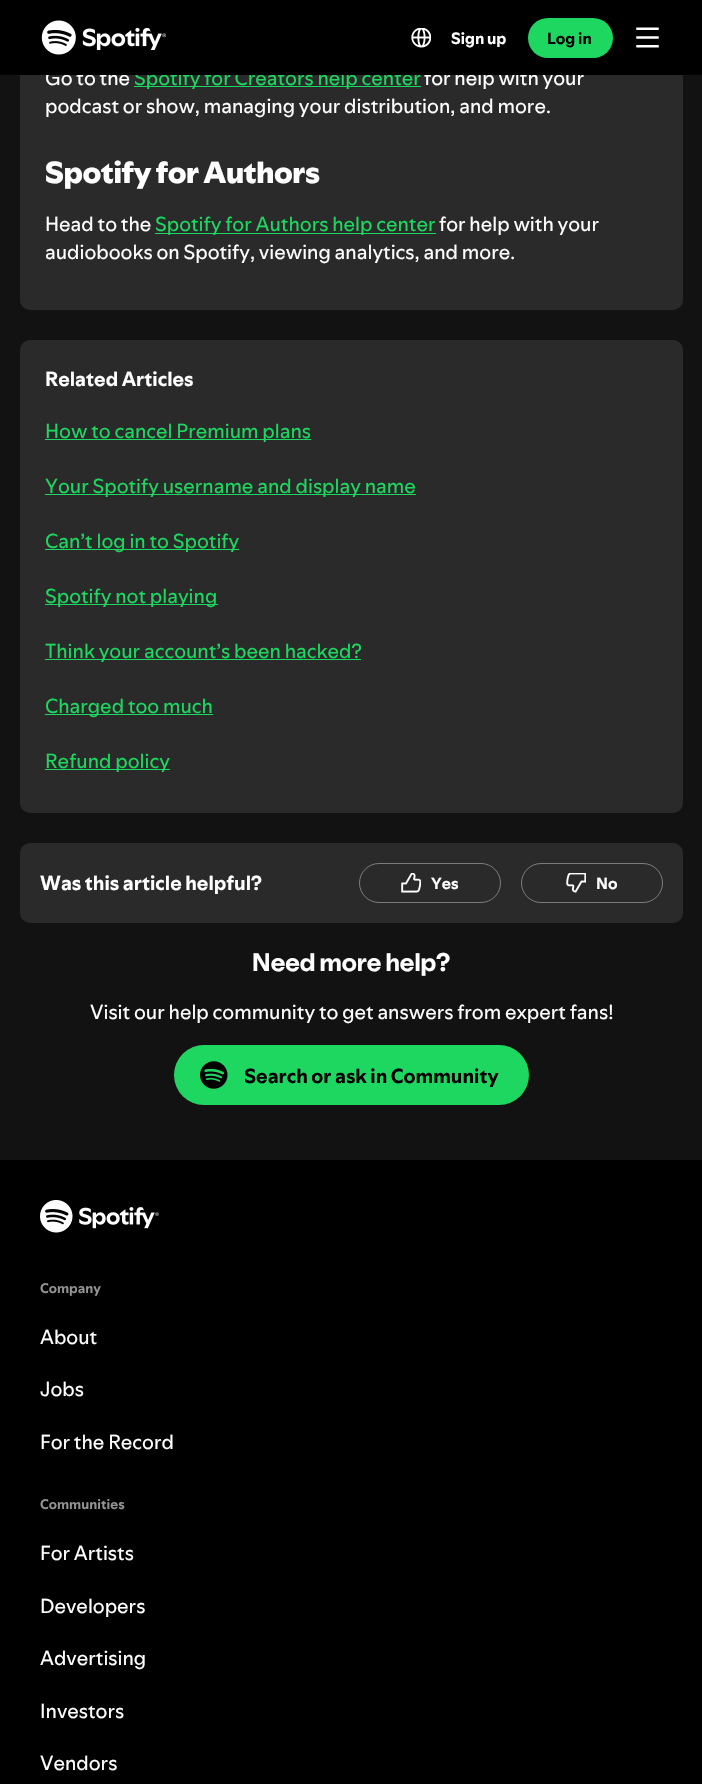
void draw(SkCanvas* canvas) {
    SkPaint paint;
    paint.setAntiAlias(true);
    auto face = [&](const char* family, int weight, float size, bool italic = false) {
        SkFontStyle style(weight, SkFontStyle::kNormal_Width,
            italic ? SkFontStyle::kItalic_Slant : SkFontStyle::kUpright_Slant);
        SkFont result(fontMgr->matchFamilyStyle(family, style), size);
        result.setSubpixel(true);
        return result;
    };
    auto write = [&](const char* s, float x, float y, const SkFont& font, SkColor color) {
        SkPaint ink(SkColor4f::FromColor(color));
        ink.setAntiAlias(true);
        canvas->drawString(s, x, y, font, ink);
    };
    auto block = [&](float x, float y, float w, float h, SkColor color) {
        SkPaint ink(SkColor4f::FromColor(color));
        ink.setAntiAlias(true);
        canvas->drawRect(SkRect::MakeXYWH(x, y, w, h), ink);
    };
    auto card = [&](float x, float y, float w, float h, float radius, SkColor color) {
        SkPaint ink(SkColor4f::FromColor(color));
        ink.setAntiAlias(true);
        canvas->drawRoundRect(SkRect::MakeXYWH(x, y, w, h), radius, radius, ink);
    };
    auto paste = [&](const char* path, float x, float y, float w, float h) {
        auto image = SkImages::DeferredFromEncodedData(SkData::MakeFromFileName(path));
        canvas->drawImageRect(image, SkRect::MakeXYWH(x, y, w, h), SkSamplingOptions());
    };
    canvas->clear(SkColorSetRGB(18, 18, 18));
    card(20, -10, 663, 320, 10, SkColorSetRGB(42, 42, 42));
    auto kFont1 = face("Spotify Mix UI", 400, 20);
    write("Go to the", 45, 85, kFont1, SK_ColorWHITE);
    block(134, 86, 287, 1, SkColorSetRGB(30, 215, 96));
    write("Spotify for Creators help center", 134, 85, kFont1, SkColorSetRGB(30, 215, 96));
    write("for help with your", 424, 85, kFont1, SK_ColorWHITE);
    block(0, 0, 702, 75, SK_ColorBLACK);
    paste("pic1.png", 41, 20, 126, 35);
    paste("pic2.png", 411, 28, 20, 20);
    auto kFont2 = face("Spotify Mix UI", 700, 16);
    write("Sign up", 451, 44, kFont2, SK_ColorWHITE);
    card(528, 18, 85, 40, 20, SkColorSetRGB(30, 215, 96));
    write("Log in", 547, 44, kFont2, SK_ColorBLACK);
    paste("pic3.png", 636, 27, 23, 21);
    write("podcast or show, managing your distribution, and more.", 45, 113, kFont1, SK_ColorWHITE);
    auto kFont3 = face("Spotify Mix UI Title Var", 800, 30);
    write("Spotify for Authors", 45, 183, kFont3, SK_ColorWHITE);
    write("Head to the", 45, 231, kFont1, SK_ColorWHITE);
    block(155, 233, 281, 1, SkColorSetRGB(30, 215, 96));
    write("Spotify for Authors help center", 155, 231, kFont1, SkColorSetRGB(30, 215, 96));
    write("for help with your", 439, 231, kFont1, SK_ColorWHITE);
    write("audiobooks on Spotify, viewing analytics, and more.", 45, 259, kFont1, SK_ColorWHITE);
    card(20, 340, 663, 473, 10, SkColorSetRGB(42, 42, 42));
    auto kFont4 = face("Spotify Mix UI", 700, 20);
    write("Related Articles", 45, 386, kFont4, SK_ColorWHITE);
    block(45, 439, 266, 1, SkColorSetRGB(30, 215, 96));
    write("How to cancel Premium plans", 45, 438, kFont1, SkColorSetRGB(30, 215, 96));
    block(45, 494, 371, 1, SkColorSetRGB(30, 215, 96));
    write("Your Spotify username and display name", 45, 493, kFont1, SkColorSetRGB(30, 215, 96));
    block(45, 549, 194, 1, SkColorSetRGB(30, 215, 96));
    write("Can’t log in to Spotify", 45, 548, kFont1, SkColorSetRGB(30, 215, 96));
    block(45, 604, 173, 1, SkColorSetRGB(30, 215, 96));
    write("Spotify not playing", 45, 603, kFont1, SkColorSetRGB(30, 215, 96));
    block(45, 659, 316, 1, SkColorSetRGB(30, 215, 96));
    write("Think your account’s been hacked?", 45, 658, kFont1, SkColorSetRGB(30, 215, 96));
    block(45, 714, 168, 1, SkColorSetRGB(30, 215, 96));
    write("Charged too much", 45, 713, kFont1, SkColorSetRGB(30, 215, 96));
    block(45, 769, 125, 1, SkColorSetRGB(30, 215, 96));
    write("Refund policy", 45, 768, kFont1, SkColorSetRGB(30, 215, 96));
    card(20, 843, 663, 80, 10, SkColorSetRGB(42, 42, 42));
    write("Was this article helpful?", 40, 890, kFont4, SK_ColorWHITE);
    paint.setStyle(SkPaint::kStroke_Style);
    paint.setStrokeWidth(1);
    paint.setColor(SkColorSetRGB(124, 124, 124));
    canvas->drawRoundRect(SkRect::MakeXYWH(359.5f, 863.5f, 141, 39), 19.5f, 19.5f, paint);
    paste("pic4.png", 401, 873, 20, 20);
    write("Yes", 431, 889, kFont2, SK_ColorWHITE);
    canvas->drawRoundRect(SkRect::MakeXYWH(521.5f, 863.5f, 141, 39), 19.5f, 19.5f, paint);
    paste("pic5.png", 566, 873, 20, 20);
    write("No", 596, 889, kFont2, SK_ColorWHITE);
    auto kFont5 = face("Spotify Mix UI Title Var", 700, 25);
    write("Need more help?", 252, 971, kFont5, SK_ColorWHITE);
    write("Visit our help community to get answers from expert fans!", 90, 1019, kFont1, SK_ColorWHITE);
    card(174, 1045, 355, 60, 30, SkColorSetRGB(30, 215, 96));
    paste("pic6.png", 200, 1061, 28, 28);
    write("Search or ask in Community", 244, 1083, kFont4, SK_ColorBLACK);
    block(0, 1160, 702, 624, SK_ColorBLACK);
    paste("pic7.png", 40, 1200, 119, 33);
    auto kFont6 = face("Spotify Mix UI", 700, 13.75f);
    write("Company", 40, 1293, kFont6, SkColorSetRGB(147, 147, 147));
    write("About", 40, 1344, kFont1, SK_ColorWHITE);
    write("Jobs", 40, 1396, kFont1, SK_ColorWHITE);
    write("For the Record", 40, 1449, kFont1, SK_ColorWHITE);
    write("Communities", 40, 1509, kFont6, SkColorSetRGB(147, 147, 147));
    write("For Artists", 40, 1560, kFont1, SK_ColorWHITE);
    write("Developers", 40, 1613, kFont1, SK_ColorWHITE);
    write("Advertising", 40, 1665, kFont1, SK_ColorWHITE);
    write("Investors", 40, 1718, kFont1, SK_ColorWHITE);
    write("Vendors", 40, 1770, kFont1, SK_ColorWHITE);
}
